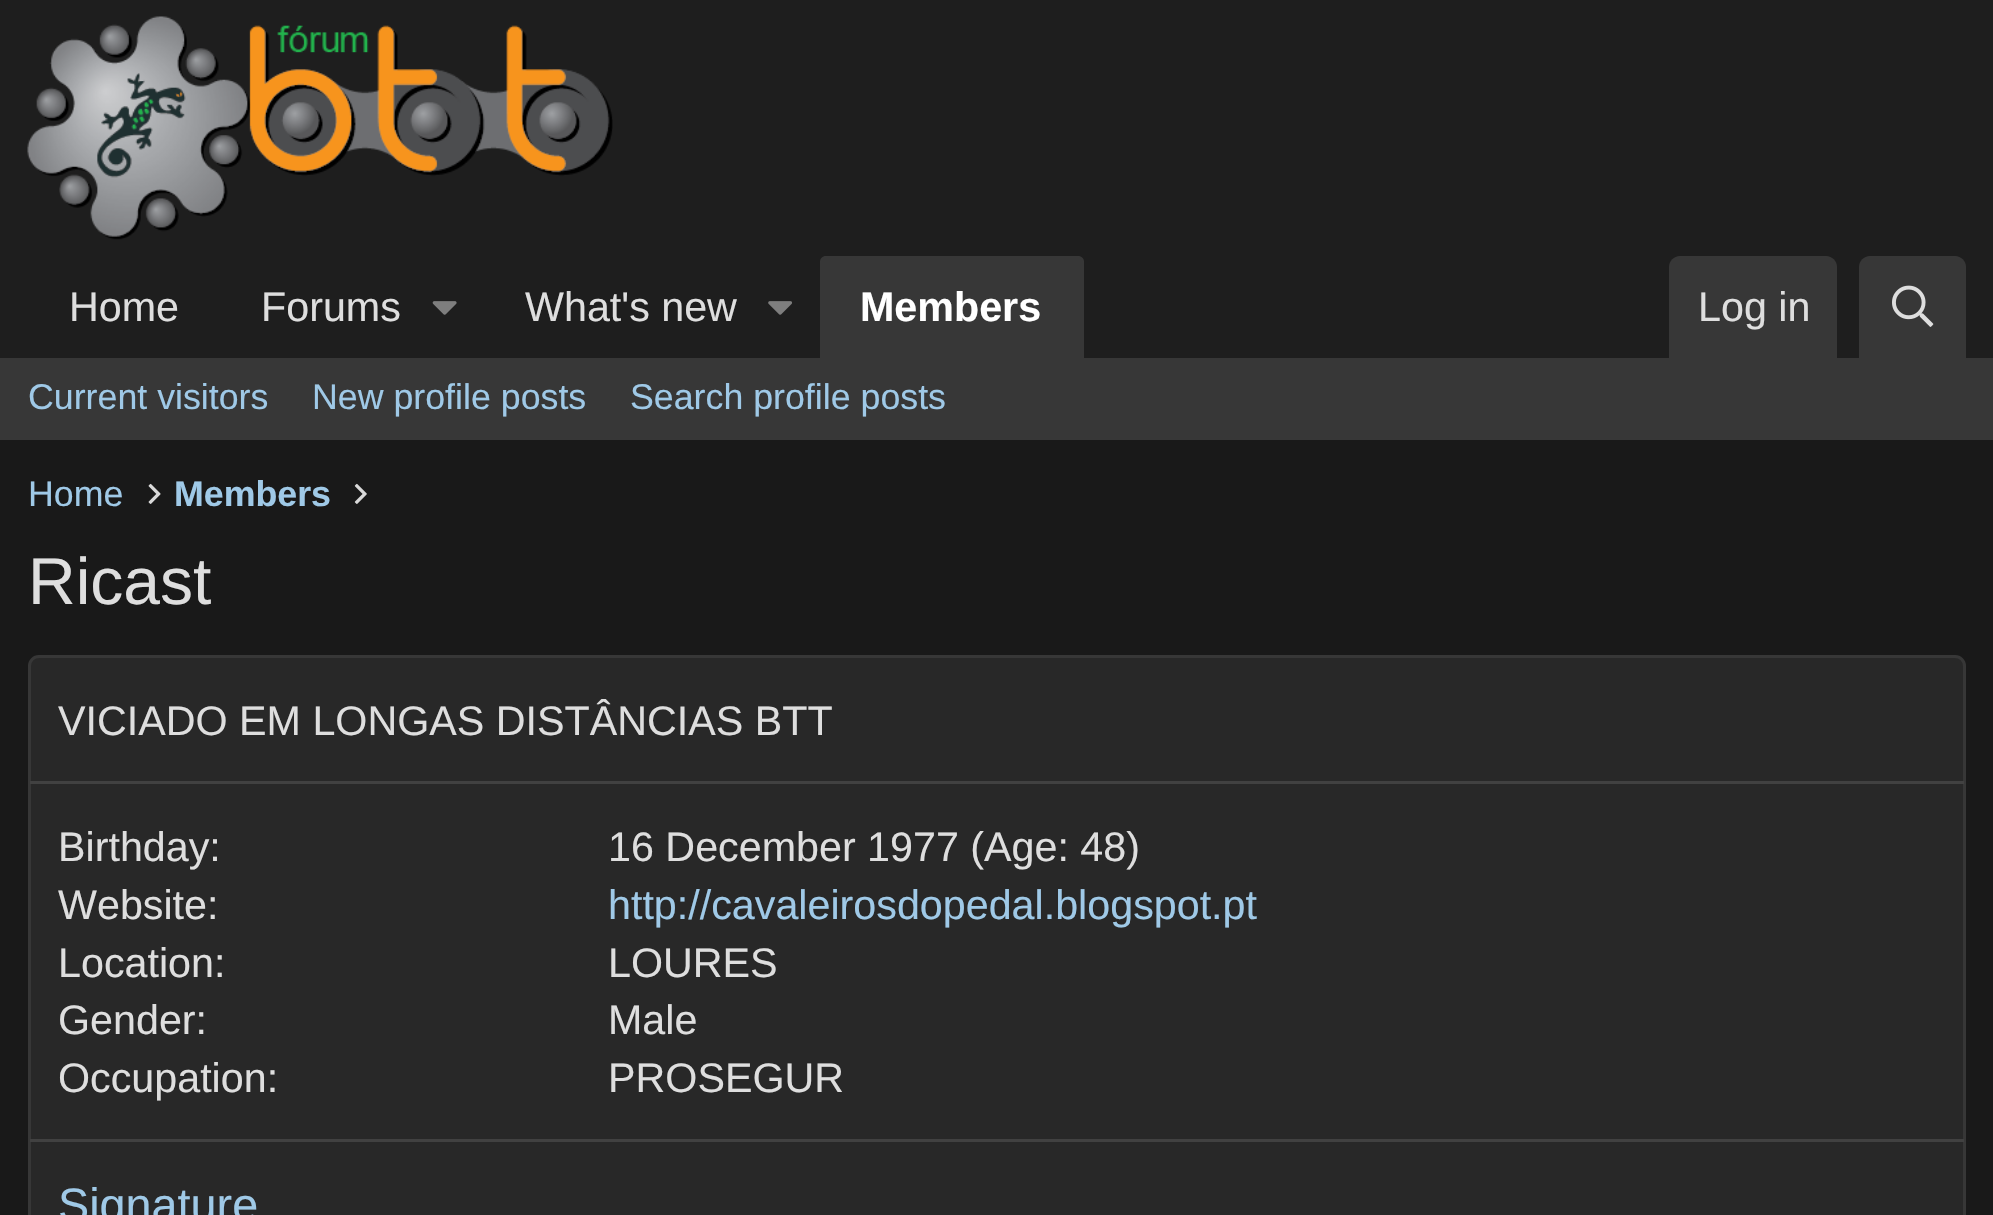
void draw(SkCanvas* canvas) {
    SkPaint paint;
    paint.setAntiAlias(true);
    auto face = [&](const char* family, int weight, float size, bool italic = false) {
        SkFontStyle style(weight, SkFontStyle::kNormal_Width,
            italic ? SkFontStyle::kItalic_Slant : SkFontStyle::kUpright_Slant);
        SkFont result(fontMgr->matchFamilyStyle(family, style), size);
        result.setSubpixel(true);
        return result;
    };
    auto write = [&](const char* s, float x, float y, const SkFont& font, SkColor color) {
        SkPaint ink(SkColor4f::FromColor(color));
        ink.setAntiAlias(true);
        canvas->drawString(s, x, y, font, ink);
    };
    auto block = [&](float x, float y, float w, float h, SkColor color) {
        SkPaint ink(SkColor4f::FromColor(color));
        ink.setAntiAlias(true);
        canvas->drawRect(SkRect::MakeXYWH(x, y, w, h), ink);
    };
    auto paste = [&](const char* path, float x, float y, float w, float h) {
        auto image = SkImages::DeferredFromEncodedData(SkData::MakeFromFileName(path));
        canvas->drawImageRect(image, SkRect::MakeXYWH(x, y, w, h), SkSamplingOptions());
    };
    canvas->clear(SkColorSetRGB(25, 25, 25));
    block(0, 0, 1993, 358, SkColorSetRGB(30, 30, 30));
    paste("pic1.png", 27, 16, 586, 224);
    auto kFont1 = face("Liberation Sans", 400, 41.25f);
    write("Home", 69, 321, kFont1, SkColorSetRGB(222, 222, 222));
    write("Forums", 261, 321, kFont1, SkColorSetRGB(222, 222, 222));
    paste("pic2.png", 432, 301, 25, 14);
    write("What's new", 525, 321, kFont1, SkColorSetRGB(222, 222, 222));
    paste("pic3.png", 768, 301, 24, 14);
    paint.setColor(SkColorSetRGB(55, 55, 55));
    canvas->drawPath(SkPathBuilder().moveTo(826, 256).lineTo(1078, 256).cubicTo(1081.5f, 256, 1084, 258.5f, 1084, 262).lineTo(1084, 358).lineTo(820, 358).lineTo(820, 262).cubicTo(820, 258.5f, 822.5f, 256, 826, 256).close().detach(), paint);
    auto kFont2 = face("Liberation Sans", 700, 41.25f);
    write("Members", 860, 321, kFont2, SK_ColorWHITE);
    canvas->drawPath(SkPathBuilder().moveTo(1680, 256).lineTo(1826, 256).cubicTo(1832, 256, 1837, 261, 1837, 267).lineTo(1837, 358).lineTo(1669, 358).lineTo(1669, 267).cubicTo(1669, 261, 1674, 256, 1680, 256).close().detach(), paint);
    write("Log in", 1698, 321, kFont1, SkColorSetRGB(222, 222, 222));
    canvas->drawPath(SkPathBuilder().moveTo(1870, 256).lineTo(1955, 256).cubicTo(1961, 256, 1966, 261, 1966, 267).lineTo(1966, 358).lineTo(1859, 358).lineTo(1859, 267).cubicTo(1859, 261, 1864, 256, 1870, 256).close().detach(), paint);
    paste("pic4.png", 1892, 285, 42, 42);
    block(0, 358, 1993, 82, SkColorSetRGB(55, 55, 55));
    auto kFont3 = face("Liberation Sans", 400, 35.75f);
    write("Current visitors", 28, 409, kFont3, SkColorSetRGB(159, 201, 231));
    write("New profile posts", 312, 409, kFont3, SkColorSetRGB(159, 201, 231));
    write("Search profile posts", 630, 409, kFont3, SkColorSetRGB(159, 201, 231));
    write("Home", 28, 506, kFont3, SkColorSetRGB(159, 201, 231));
    paste("pic5.png", 148, 483, 13, 21);
    auto kFont4 = face("Liberation Sans", 700, 35.75f);
    write("Members", 174, 506, kFont4, SkColorSetRGB(159, 201, 231));
    paste("pic6.png", 354, 483, 13, 21);
    auto kFont5 = face("Liberation Sans", 400, 66);
    write("Ricast", 28, 604, kFont5, SkColorSetRGB(222, 222, 222));
    paint.setColor(SkColorSetRGB(40, 40, 40));
    canvas->drawRoundRect(SkRect::MakeXYWH(29.5f, 656.5f, 1935, 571), 9.5f, 9.5f, paint);
    paint.setStyle(SkPaint::kStroke_Style);
    paint.setStrokeWidth(3);
    paint.setColor(SkColorSetRGB(55, 55, 55));
    canvas->drawRoundRect(SkRect::MakeXYWH(29.5f, 656.5f, 1935, 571), 9.5f, 9.5f, paint);
    write("VICIADO EM LONGAS DISTÂNCIAS BTT", 58, 735, kFont1, SkColorSetRGB(222, 222, 222));
    block(30, 781, 1934, 3, SkColorSetRGB(65, 65, 65));
    write("Birthday:", 58, 861, kFont1, SkColorSetRGB(222, 222, 222));
    write("16 December 1977 (Age: 48)", 608, 861, kFont1, SkColorSetRGB(222, 222, 222));
    write("Website:", 58, 919, kFont1, SkColorSetRGB(222, 222, 222));
    write("http://cavaleirosdopedal.blogspot.pt", 608, 919, kFont1, SkColorSetRGB(159, 201, 231));
    write("Location:", 58, 977, kFont1, SkColorSetRGB(222, 222, 222));
    write("LOURES", 608, 977, kFont1, SkColorSetRGB(222, 222, 222));
    write("Gender:", 58, 1034, kFont1, SkColorSetRGB(222, 222, 222));
    write("Male", 608, 1034, kFont1, SkColorSetRGB(222, 222, 222));
    write("Occupation:", 58, 1092, kFont1, SkColorSetRGB(222, 222, 222));
    write("PROSEGUR", 608, 1092, kFont1, SkColorSetRGB(222, 222, 222));
    block(30, 1139, 1934, 3, SkColorSetRGB(65, 65, 65));
    auto kFont6 = face("Liberation Sans", 400, 46.75f);
    write("Signature", 58, 1221, kFont6, SkColorSetRGB(159, 201, 231));
}
